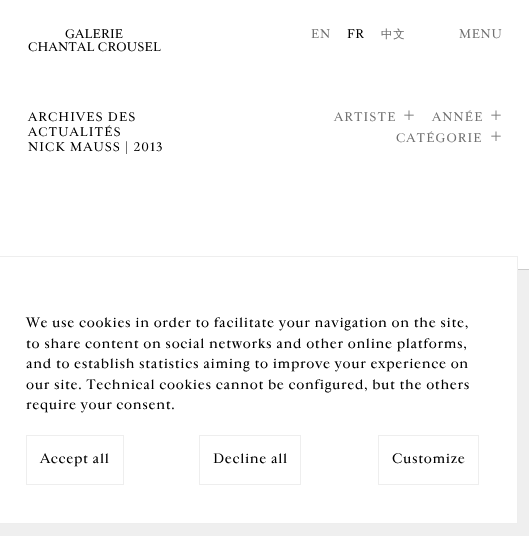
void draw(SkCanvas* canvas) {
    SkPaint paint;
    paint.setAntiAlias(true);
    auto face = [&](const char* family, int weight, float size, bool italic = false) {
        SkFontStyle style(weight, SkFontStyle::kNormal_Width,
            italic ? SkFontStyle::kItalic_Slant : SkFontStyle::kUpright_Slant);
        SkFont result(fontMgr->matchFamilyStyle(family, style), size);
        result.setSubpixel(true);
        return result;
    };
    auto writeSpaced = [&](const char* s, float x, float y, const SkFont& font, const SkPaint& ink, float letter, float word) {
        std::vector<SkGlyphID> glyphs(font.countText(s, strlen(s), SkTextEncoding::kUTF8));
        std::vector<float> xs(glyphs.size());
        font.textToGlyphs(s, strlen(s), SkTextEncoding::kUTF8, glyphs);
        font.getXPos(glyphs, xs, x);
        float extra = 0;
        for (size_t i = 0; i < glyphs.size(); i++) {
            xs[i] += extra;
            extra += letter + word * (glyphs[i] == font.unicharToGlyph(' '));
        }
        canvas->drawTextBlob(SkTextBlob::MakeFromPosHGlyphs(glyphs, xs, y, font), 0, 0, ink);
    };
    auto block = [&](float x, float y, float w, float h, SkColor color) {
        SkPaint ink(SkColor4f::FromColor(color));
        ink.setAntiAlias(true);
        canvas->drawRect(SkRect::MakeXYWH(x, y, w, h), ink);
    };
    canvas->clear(SkColorSetRGB(239, 239, 239));
    block(0, 0, 529, 269, SK_ColorWHITE);
    auto kFont1 = face("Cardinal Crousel", 400, 11.5f);
    paint.setColor(SK_ColorBLACK);
    writeSpaced("GALERIE", 65, 38, kFont1, paint, 0.25f, 0);
    writeSpaced("CHANTAL CROUSEL", 28, 51, kFont1, paint, 0.25f, 0);
    paint.setColor(SkColorSetRGB(112, 112, 112));
    writeSpaced("EN", 311, 38, kFont1, paint, 0.65f, 0);
    paint.setColor(SK_ColorBLACK);
    writeSpaced("FR", 347, 38, kFont1, paint, 0.65f, 0);
    auto kFont2 = face("WenQuanYi Zen Hei", 500, 11.5f);
    paint.setColor(SkColorSetRGB(112, 112, 112));
    writeSpaced("中文", 381, 38, kFont2, paint, 0.65f, 0);
    writeSpaced("MENU", 459, 38, kFont1, paint, 0.65f, 0);
    paint.setColor(SK_ColorBLACK);
    writeSpaced("ARCHIVES DES", 28, 121, kFont1, paint, 1.1f, 0);
    writeSpaced("ACTUALITÉS", 28, 136, kFont1, paint, 1.1f, 0);
    writeSpaced("NICK MAUSS | 2013", 28, 151, kFont1, paint, 1.1f, 0);
    paint.setColor(SkColorSetRGB(112, 112, 112));
    writeSpaced("ARTISTE", 334, 121, kFont1, paint, 1.1f, 0);
    auto kFont3 = face("Cardinal Crousel", 400, 20);
    writeSpaced("+", 403, 121, kFont3, paint, 1.1f, 0);
    writeSpaced("ANNÉE", 432, 121, kFont1, paint, 1.1f, 0);
    writeSpaced("+", 490, 121, kFont3, paint, 1.1f, 0);
    writeSpaced("CATÉGORIE", 396, 142, kFont1, paint, 1.1f, 0);
    writeSpaced("+", 490, 142, kFont3, paint, 1.1f, 0);
    block(518, 269, 11, 1, SkColorSetRGB(204, 204, 204));
    block(0, 269, 517, 254, SK_ColorWHITE);
    paint.setStyle(SkPaint::kStroke_Style);
    paint.setStrokeWidth(1);
    paint.setColor(SkColorSetRGB(238, 238, 238));
    canvas->drawRect(SkRect::MakeXYWH(-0.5f, 256.5f, 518, 267), paint);
    auto kFont4 = face("Cardinal Crousel", 400, 12.8f);
    paint.setStyle(SkPaint::kFill_Style);
    paint.setColor(SK_ColorBLACK);
    writeSpaced("We use cookies in order to facilitate your navigation on the site,", 26, 327, kFont4, paint, 0.65f, 0);
    writeSpaced("to share content on social networks and other online platforms,", 26, 348, kFont4, paint, 0.65f, 0);
    writeSpaced("and to establish statistics aiming to improve your experience on", 26, 368, kFont4, paint, 0.65f, 0);
    writeSpaced("our site. Technical cookies cannot be configured, but the others", 26, 389, kFont4, paint, 0.65f, 0);
    writeSpaced("require your consent.", 26, 409, kFont4, paint, 0.65f, 0);
    paint.setStyle(SkPaint::kStroke_Style);
    paint.setColor(SkColorSetRGB(238, 238, 238));
    canvas->drawRect(SkRect::MakeXYWH(26.5f, 435.5f, 97, 49), paint);
    paint.setStyle(SkPaint::kFill_Style);
    paint.setColor(SK_ColorBLACK);
    writeSpaced("Accept all", 40, 463, kFont4, paint, 0.65f, 0);
    paint.setStyle(SkPaint::kStroke_Style);
    paint.setColor(SkColorSetRGB(238, 238, 238));
    canvas->drawRect(SkRect::MakeXYWH(199.5f, 435.5f, 101, 49), paint);
    paint.setStyle(SkPaint::kFill_Style);
    paint.setColor(SK_ColorBLACK);
    writeSpaced("Decline all", 213, 463, kFont4, paint, 0.65f, 0);
    paint.setStyle(SkPaint::kStroke_Style);
    paint.setColor(SkColorSetRGB(238, 238, 238));
    canvas->drawRect(SkRect::MakeXYWH(378.5f, 435.5f, 100, 49), paint);
    paint.setStyle(SkPaint::kFill_Style);
    paint.setColor(SK_ColorBLACK);
    writeSpaced("Customize", 392, 463, kFont4, paint, 0.65f, 0);
}
